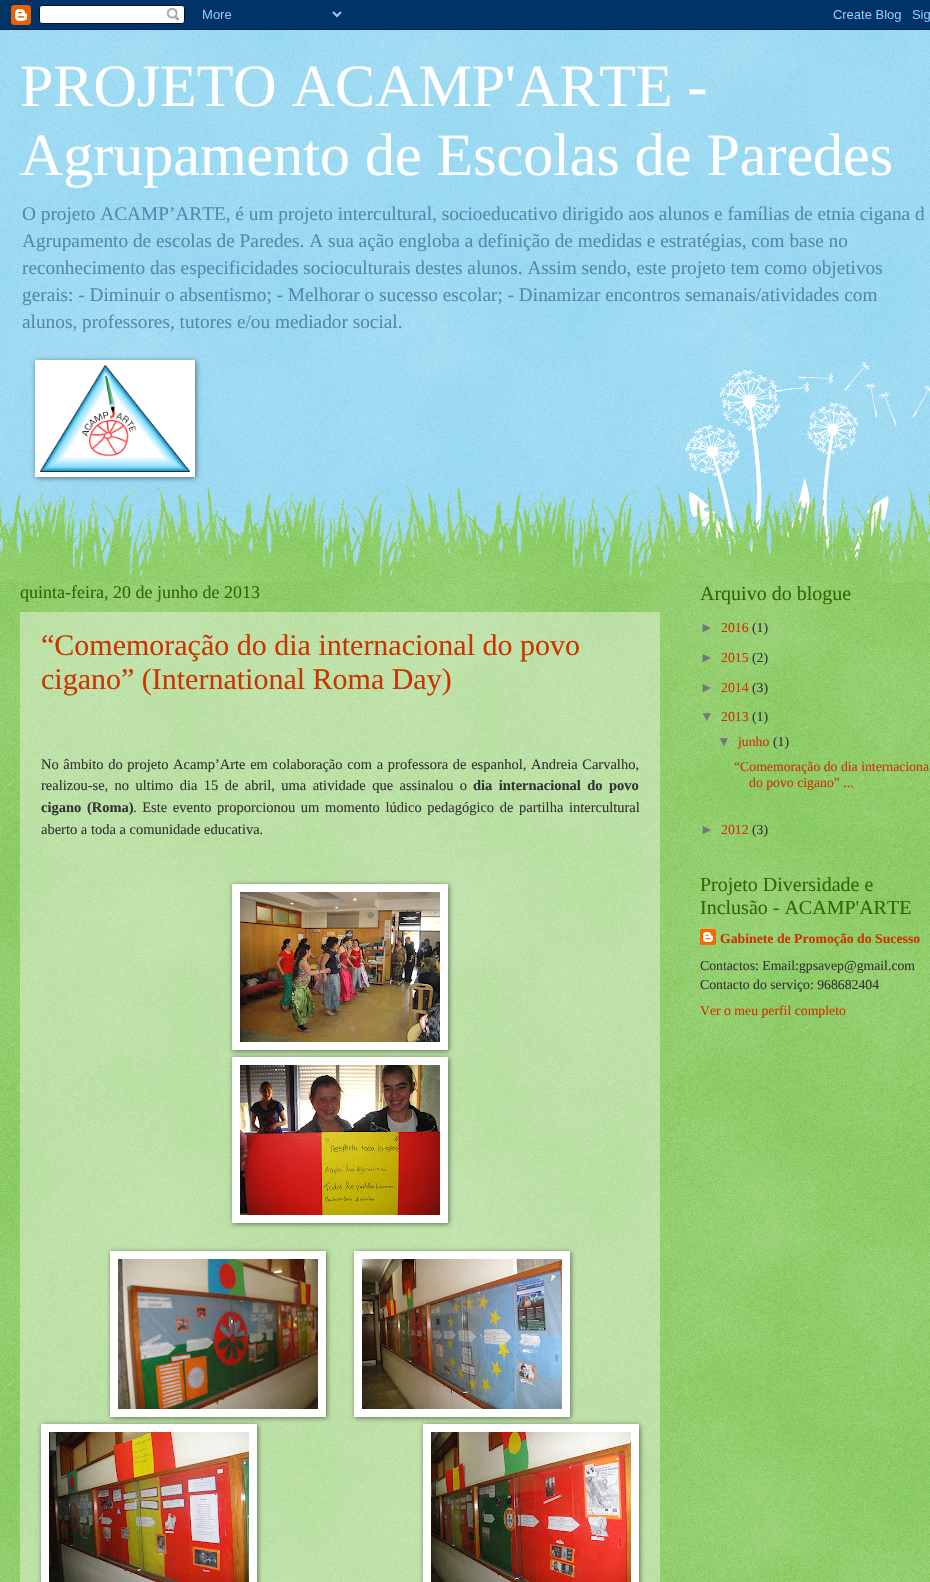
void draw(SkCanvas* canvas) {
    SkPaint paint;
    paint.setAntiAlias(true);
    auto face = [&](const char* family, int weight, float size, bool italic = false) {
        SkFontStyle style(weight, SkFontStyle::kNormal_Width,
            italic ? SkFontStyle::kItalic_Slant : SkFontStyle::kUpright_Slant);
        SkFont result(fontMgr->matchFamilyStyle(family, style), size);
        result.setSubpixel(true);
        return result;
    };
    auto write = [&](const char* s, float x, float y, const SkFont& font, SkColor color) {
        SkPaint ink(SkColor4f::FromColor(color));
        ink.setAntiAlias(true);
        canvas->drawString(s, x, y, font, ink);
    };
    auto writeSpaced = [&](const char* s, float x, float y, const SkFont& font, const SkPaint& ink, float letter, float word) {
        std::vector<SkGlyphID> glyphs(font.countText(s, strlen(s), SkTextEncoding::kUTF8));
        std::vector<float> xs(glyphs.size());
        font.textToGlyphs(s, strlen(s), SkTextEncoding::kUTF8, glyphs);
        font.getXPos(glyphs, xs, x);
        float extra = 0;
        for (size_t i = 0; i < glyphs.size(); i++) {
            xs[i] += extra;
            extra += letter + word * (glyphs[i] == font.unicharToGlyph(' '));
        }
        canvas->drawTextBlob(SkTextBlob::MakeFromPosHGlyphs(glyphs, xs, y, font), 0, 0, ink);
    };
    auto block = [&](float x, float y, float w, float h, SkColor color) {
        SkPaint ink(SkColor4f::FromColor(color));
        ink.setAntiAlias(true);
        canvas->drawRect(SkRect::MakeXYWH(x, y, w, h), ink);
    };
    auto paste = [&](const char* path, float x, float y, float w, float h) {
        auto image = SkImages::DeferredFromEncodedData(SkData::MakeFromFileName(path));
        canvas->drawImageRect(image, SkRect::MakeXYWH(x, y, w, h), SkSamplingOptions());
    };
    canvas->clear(SkColorSetRGB(119, 204, 238));
    paste("pic1.png", 0, 30, 930, 547);
    paste("pic2.png", 0, 0, 930, 30);
    auto kFont1 = face("Liberation Serif", 400, 60);
    write("PROJETO ACAMP'ARTE -", 20, 106, kFont1, SK_ColorWHITE);
    write("Agrupamento de Escolas de Paredes", 20, 175, kFont1, SK_ColorWHITE);
    auto kFont2 = face("Liberation Serif", 400, 19.3f);
    write("O projeto ACAMP’ARTE, é um projeto intercultural, socioeducativo dirigido aos alunos e famílias de etnia cigana d", 22, 220, kFont2, SkColorSetRGB(85, 136, 170));
    write("Agrupamento de escolas de Paredes. A sua ação engloba a definição de medidas e estratégias, com base no", 22, 247, kFont2, SkColorSetRGB(85, 136, 170));
    write("reconhecimento das especificidades socioculturais destes alunos. Assim sendo, este projeto tem como objetivos", 22, 274, kFont2, SkColorSetRGB(85, 136, 170));
    write("gerais: - Diminuir o absentismo; - Melhorar o sucesso escolar; - Dinamizar encontros semanais/atividades com", 22, 301, kFont2, SkColorSetRGB(85, 136, 170));
    write("alunos, professores, tutores e/ou mediador social.", 22, 328, kFont2, SkColorSetRGB(85, 136, 170));
    paint.setColor(SkColorSetARGB(128, 0, 0, 0));
    paint.setMaskFilter(SkMaskFilter::MakeBlur(kNormal_SkBlurStyle, 2.5f));
    canvas->drawRect(SkRect::MakeXYWH(36, 361, 160, 117), paint);
    paint.setMaskFilter(nullptr);
    block(35, 360, 160, 117, SK_ColorWHITE);
    paste("pic3.png", 40, 365, 150, 107);
    block(0, 582, 930, 1000, SkColorSetRGB(102, 187, 51));
    paste("pic4.png", 0, 582, 930, 1000);
    paste("pic5.png", 680, 362, 250, 215);
    paste("pic6.png", 0, 486, 930, 96);
    auto kFont3 = face("Liberation Serif", 400, 18);
    write("quinta-feira, 20 de junho de 2013", 20, 598, kFont3, SkColorSetRGB(51, 102, 0));
    block(20, 612, 640, 970, SkColorSetARGB(102, 255, 255, 255));
    auto kFont4 = face("Liberation Serif", 400, 30);
    write("“Comemoração do dia internacional do povo", 41, 655, kFont4, SkColorSetRGB(204, 51, 0));
    write("cigano” (International Roma Day)", 41, 689, kFont4, SkColorSetRGB(204, 51, 0));
    auto kFont5 = face("Liberation Serif", 400, 14.5f);
    paint.setColor(SkColorSetRGB(51, 51, 51));
    writeSpaced("No âmbito do projeto Acamp’Arte em colaboração com a professora de espanhol, Andreia Carvalho,", 41, 769, kFont5, paint, 0, 1);
    writeSpaced("realizou-se, no ultimo dia 15 de abril, uma atividade que assinalou o", 41, 790, kFont5, paint, 0, 2.75f);
    auto kFont6 = face("Liberation Serif", 700, 14.5f);
    writeSpaced("dia internacional do povo", 473, 790, kFont6, paint, 0, 2.75f);
    writeSpaced("cigano (Roma)", 41, 812, kFont6, paint, 0, 2);
    writeSpaced(". Este evento proporcionou um momento lúdico pedagógico de partilha intercultural", 133, 812, kFont5, paint, 0, 2);
    write("aberto a toda a comunidade educativa.", 41, 834, kFont5, SkColorSetRGB(51, 51, 51));
    paint.setColor(SkColorSetARGB(128, 0, 0, 0));
    paint.setMaskFilter(SkMaskFilter::MakeBlur(kNormal_SkBlurStyle, 2.5f));
    canvas->drawRect(SkRect::MakeXYWH(233, 885, 216, 166), paint);
    paint.setMaskFilter(nullptr);
    block(232, 884, 216, 166, SK_ColorWHITE);
    paste("pic7.png", 240, 892, 200, 150);
    paint.setMaskFilter(SkMaskFilter::MakeBlur(kNormal_SkBlurStyle, 2.5f));
    canvas->drawRect(SkRect::MakeXYWH(233, 1058, 216, 166), paint);
    paint.setMaskFilter(nullptr);
    block(232, 1057, 216, 166, SK_ColorWHITE);
    paste("pic8.png", 240, 1065, 200, 150);
    paint.setMaskFilter(SkMaskFilter::MakeBlur(kNormal_SkBlurStyle, 2.5f));
    canvas->drawRect(SkRect::MakeXYWH(111, 1252, 216, 166), paint);
    paint.setMaskFilter(nullptr);
    paint.setMaskFilter(SkMaskFilter::MakeBlur(kNormal_SkBlurStyle, 2.5f));
    canvas->drawRect(SkRect::MakeXYWH(355, 1252, 216, 166), paint);
    paint.setMaskFilter(nullptr);
    block(110, 1251, 216, 166, SK_ColorWHITE);
    block(354, 1251, 216, 166, SK_ColorWHITE);
    paste("pic9.png", 118, 1259, 200, 150);
    paste("pic10.png", 362, 1259, 200, 150);
    paint.setMaskFilter(SkMaskFilter::MakeBlur(kNormal_SkBlurStyle, 2.5f));
    canvas->drawRect(SkRect::MakeXYWH(42, 1425, 216, 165), paint);
    paint.setMaskFilter(nullptr);
    block(41, 1424, 216, 158, SK_ColorWHITE);
    paste("pic11.png", 49, 1432, 200, 150);
    paint.setMaskFilter(SkMaskFilter::MakeBlur(kNormal_SkBlurStyle, 2.5f));
    canvas->drawRect(SkRect::MakeXYWH(424, 1425, 216, 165), paint);
    paint.setMaskFilter(nullptr);
    block(423, 1424, 216, 158, SK_ColorWHITE);
    paste("pic12.png", 431, 1432, 200, 150);
    auto kFont7 = face("Liberation Serif", 400, 20);
    write("Arquivo do blogue", 700, 600, kFont7, SkColorSetRGB(51, 102, 0));
    auto kFont8 = face("Liberation Sans", 400, 13.75f);
    write("►", 700, 632, kFont8, SkColorSetRGB(119, 119, 119));
    auto kFont9 = face("Liberation Serif", 400, 13.75f);
    write("2016", 721, 632, kFont9, SkColorSetRGB(204, 51, 0));
    write("(1)", 752, 632, kFont9, SkColorSetRGB(51, 51, 51));
    write("►", 700, 662, kFont8, SkColorSetRGB(119, 119, 119));
    write("2015", 721, 662, kFont9, SkColorSetRGB(204, 51, 0));
    write("(2)", 752, 662, kFont9, SkColorSetRGB(51, 51, 51));
    write("►", 700, 692, kFont8, SkColorSetRGB(119, 119, 119));
    write("2014", 721, 692, kFont9, SkColorSetRGB(204, 51, 0));
    write("(3)", 752, 692, kFont9, SkColorSetRGB(51, 51, 51));
    write("▼", 700, 721, kFont8, SkColorSetRGB(119, 119, 119));
    write("2013", 721, 721, kFont9, SkColorSetRGB(204, 51, 0));
    write("(1)", 752, 721, kFont9, SkColorSetRGB(51, 51, 51));
    write("▼", 717, 746, kFont8, SkColorSetRGB(119, 119, 119));
    write("junho", 738, 746, kFont9, SkColorSetRGB(204, 51, 0));
    write("(1)", 773, 746, kFont9, SkColorSetRGB(51, 51, 51));
    write("“Comemoração do dia internaciona", 734, 771, kFont9, SkColorSetRGB(204, 51, 0));
    write("do povo cigano” ...", 749, 787, kFont9, SkColorSetRGB(204, 51, 0));
    write("►", 700, 834, kFont8, SkColorSetRGB(119, 119, 119));
    write("2012", 721, 834, kFont9, SkColorSetRGB(204, 51, 0));
    write("(3)", 752, 834, kFont9, SkColorSetRGB(51, 51, 51));
    write("Projeto Diversidade e", 700, 891, kFont7, SkColorSetRGB(51, 102, 0));
    write("Inclusão - ACAMP'ARTE", 700, 914, kFont7, SkColorSetRGB(51, 102, 0));
    paste("pic13.png", 700, 929, 16, 16);
    auto kFont10 = face("Liberation Serif", 700, 13.75f);
    write("Gabinete de Promoção do Sucesso", 720, 943, kFont10, SkColorSetRGB(204, 51, 0));
    write("Contactos: Email:gpsavep@gmail.com", 700, 970, kFont9, SkColorSetRGB(51, 51, 51));
    write("Contacto do serviço: 968682404", 700, 989, kFont9, SkColorSetRGB(51, 51, 51));
    write("Ver o meu perfil completo", 700, 1015, kFont9, SkColorSetRGB(204, 51, 0));
}
